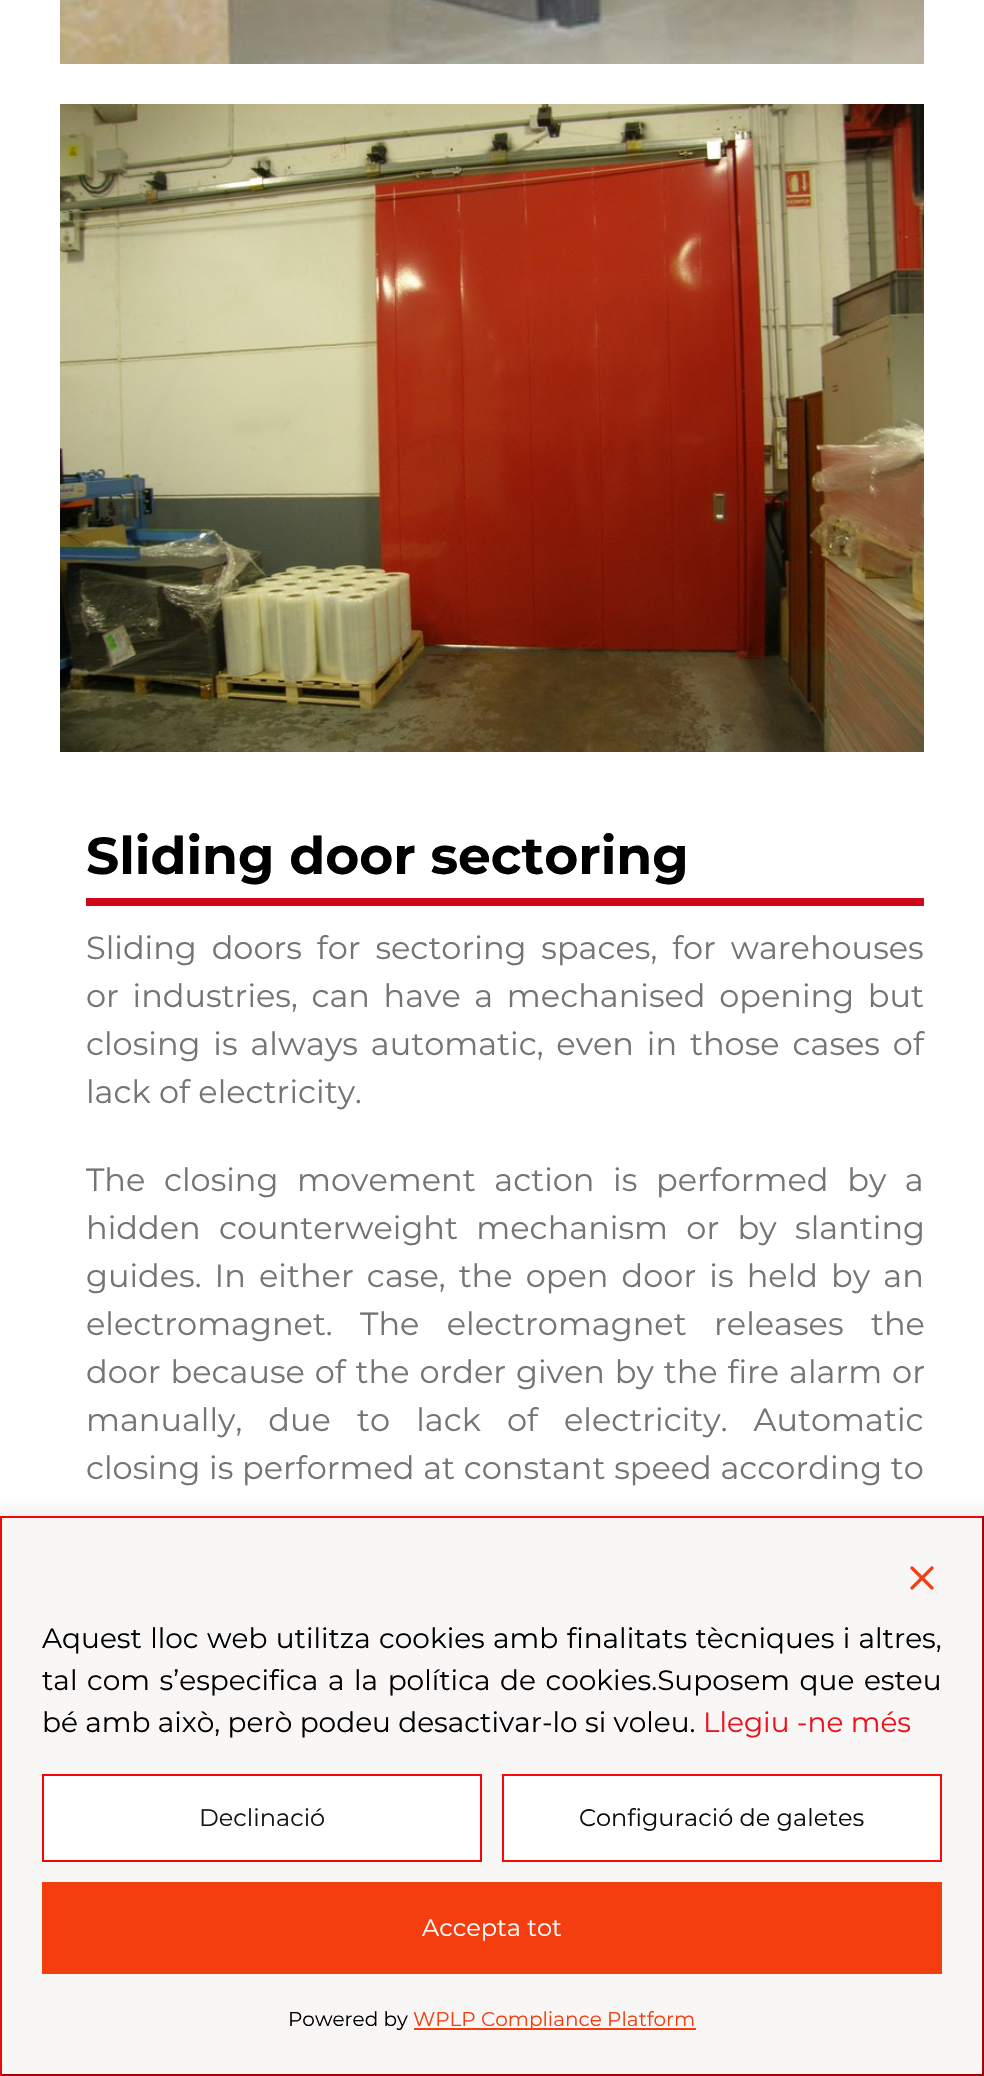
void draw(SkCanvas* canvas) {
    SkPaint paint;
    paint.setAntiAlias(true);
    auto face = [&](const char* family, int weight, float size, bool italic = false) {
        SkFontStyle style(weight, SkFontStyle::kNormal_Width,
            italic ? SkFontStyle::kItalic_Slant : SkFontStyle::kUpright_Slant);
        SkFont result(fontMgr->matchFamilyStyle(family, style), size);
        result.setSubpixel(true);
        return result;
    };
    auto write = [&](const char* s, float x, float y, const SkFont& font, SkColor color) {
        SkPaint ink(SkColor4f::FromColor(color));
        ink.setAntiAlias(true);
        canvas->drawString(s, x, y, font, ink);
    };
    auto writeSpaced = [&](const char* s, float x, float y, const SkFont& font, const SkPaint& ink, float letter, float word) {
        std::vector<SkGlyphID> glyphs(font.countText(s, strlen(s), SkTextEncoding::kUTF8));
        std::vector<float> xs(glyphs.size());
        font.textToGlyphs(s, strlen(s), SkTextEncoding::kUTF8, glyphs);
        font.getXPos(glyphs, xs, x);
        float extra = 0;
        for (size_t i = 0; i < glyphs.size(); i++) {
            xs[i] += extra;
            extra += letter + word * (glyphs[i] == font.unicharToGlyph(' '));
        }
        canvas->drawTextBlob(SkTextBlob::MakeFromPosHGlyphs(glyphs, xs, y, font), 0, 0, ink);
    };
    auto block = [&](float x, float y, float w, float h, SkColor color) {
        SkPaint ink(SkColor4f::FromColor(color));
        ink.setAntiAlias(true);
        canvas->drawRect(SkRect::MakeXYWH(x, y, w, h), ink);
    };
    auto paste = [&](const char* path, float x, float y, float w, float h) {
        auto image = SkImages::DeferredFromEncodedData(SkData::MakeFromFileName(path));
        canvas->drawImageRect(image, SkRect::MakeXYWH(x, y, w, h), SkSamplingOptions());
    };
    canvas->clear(SK_ColorWHITE);
    paste("pic1.png", 60, 0, 864, 64);
    paste("pic2.png", 60, 104, 864, 648);
    auto kFont1 = face("Montserrat", 700, 52);
    write("Sliding door sectoring", 86, 874, kFont1, SK_ColorBLACK);
    block(86, 898, 838, 8, SkColorSetRGB(206, 8, 25));
    auto kFont2 = face("Montserrat", 400, 32);
    paint.setColor(SkColorSetRGB(116, 116, 116));
    writeSpaced("Sliding doors for sectoring spaces, for warehouses", 86, 959, kFont2, paint, 0, 6.5f);
    writeSpaced("or industries, can have a mechanised opening but", 86, 1007, kFont2, paint, 0, 5.25f);
    writeSpaced("closing is always automatic, even in those cases of", 86, 1055, kFont2, paint, 0, 4.5f);
    write("lack of electricity.", 86, 1103, kFont2, SkColorSetRGB(116, 116, 116));
    writeSpaced("The closing movement action is performed by a", 86, 1191, kFont2, paint, 0, 10.25f);
    writeSpaced("hidden counterweight mechanism or by slanting", 86, 1239, kFont2, paint, 0, 10);
    writeSpaced("guides. In either case, the open door is held by an", 86, 1287, kFont2, paint, 0, 4.75f);
    writeSpaced("electromagnet. The electromagnet releases the", 86, 1335, kFont2, paint, 0, 19);
    writeSpaced("door because of the order given by the fire alarm or", 86, 1383, kFont2, paint, 0, 1.5f);
    writeSpaced("manually, due to lack of electricity. Automatic", 86, 1431, kFont2, paint, 0, 17.75f);
    writeSpaced("closing is performed at constant speed according to", 86, 1479, kFont2, paint, 0, 0.25f);
    paint.setColor(SkColorSetRGB(221, 221, 221));
    paint.setMaskFilter(SkMaskFilter::MakeBlur(kNormal_SkBlurStyle, 11));
    canvas->drawRect(SkRect::MakeXYWH(-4, 1518, 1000, 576), paint);
    paint.setMaskFilter(nullptr);
    block(2, 1518, 980, 556, SkColorSetRGB(249, 246, 246));
    block(0, 1516, 984, 2, SkColorSetRGB(242, 7, 7));
    block(982, 1516, 2, 560, SkColorSetRGB(161, 5, 5));
    block(0, 2074, 984, 2, SkColorSetRGB(161, 5, 5));
    block(0, 1516, 2, 560, SkColorSetRGB(242, 7, 7));
    paste("pic3.png", 910, 1566, 24, 24);
    auto kFont3 = face("Montserrat", 400, 28);
    paint.setColor(SK_ColorBLACK);
    writeSpaced("Aquest lloc web utilitza cookies amb finalitats tècniques i altres,", 42, 1648, kFont3, paint, 0, 1);
    writeSpaced("tal com s’especifica a la política de cookies.Suposem que esteu", 42, 1690, kFont3, paint, 0, 2.25f);
    write("bé amb això, però podeu desactivar-lo si voleu.", 42, 1732, kFont3, SK_ColorBLACK);
    write("Llegiu -ne més", 703, 1732, kFont3, SkColorSetRGB(238, 17, 28));
    paint.setColor(SK_ColorWHITE);
    canvas->drawRect(SkRect::MakeXYWH(43, 1775, 438, 86), paint);
    paint.setStyle(SkPaint::kStroke_Style);
    paint.setStrokeWidth(2);
    paint.setColor(SkColorSetRGB(244, 6, 6));
    canvas->drawRect(SkRect::MakeXYWH(43, 1775, 438, 86), paint);
    auto kFont4 = face("Montserrat", 400, 24);
    write("Declinació", 199, 1826, kFont4, SkColorSetRGB(23, 22, 22));
    paint.setStyle(SkPaint::kFill_Style);
    paint.setColor(SK_ColorWHITE);
    canvas->drawRect(SkRect::MakeXYWH(503, 1775, 438, 86), paint);
    paint.setStyle(SkPaint::kStroke_Style);
    paint.setColor(SkColorSetRGB(251, 9, 9));
    canvas->drawRect(SkRect::MakeXYWH(503, 1775, 438, 86), paint);
    write("Configuració de galetes", 579, 1826, kFont4, SkColorSetRGB(13, 13, 13));
    block(42, 1882, 900, 92, SkColorSetRGB(244, 62, 16));
    write("Accepta tot", 422, 1936, kFont4, SK_ColorWHITE);
    auto kFont5 = face("Montserrat", 400, 20);
    write("Powered by", 288, 2026, kFont5, SK_ColorBLACK);
    block(414, 2028, 282, 2, SkColorSetRGB(244, 62, 16));
    write("WPLP Compliance Platform", 413, 2026, kFont5, SkColorSetRGB(244, 62, 16));
}
